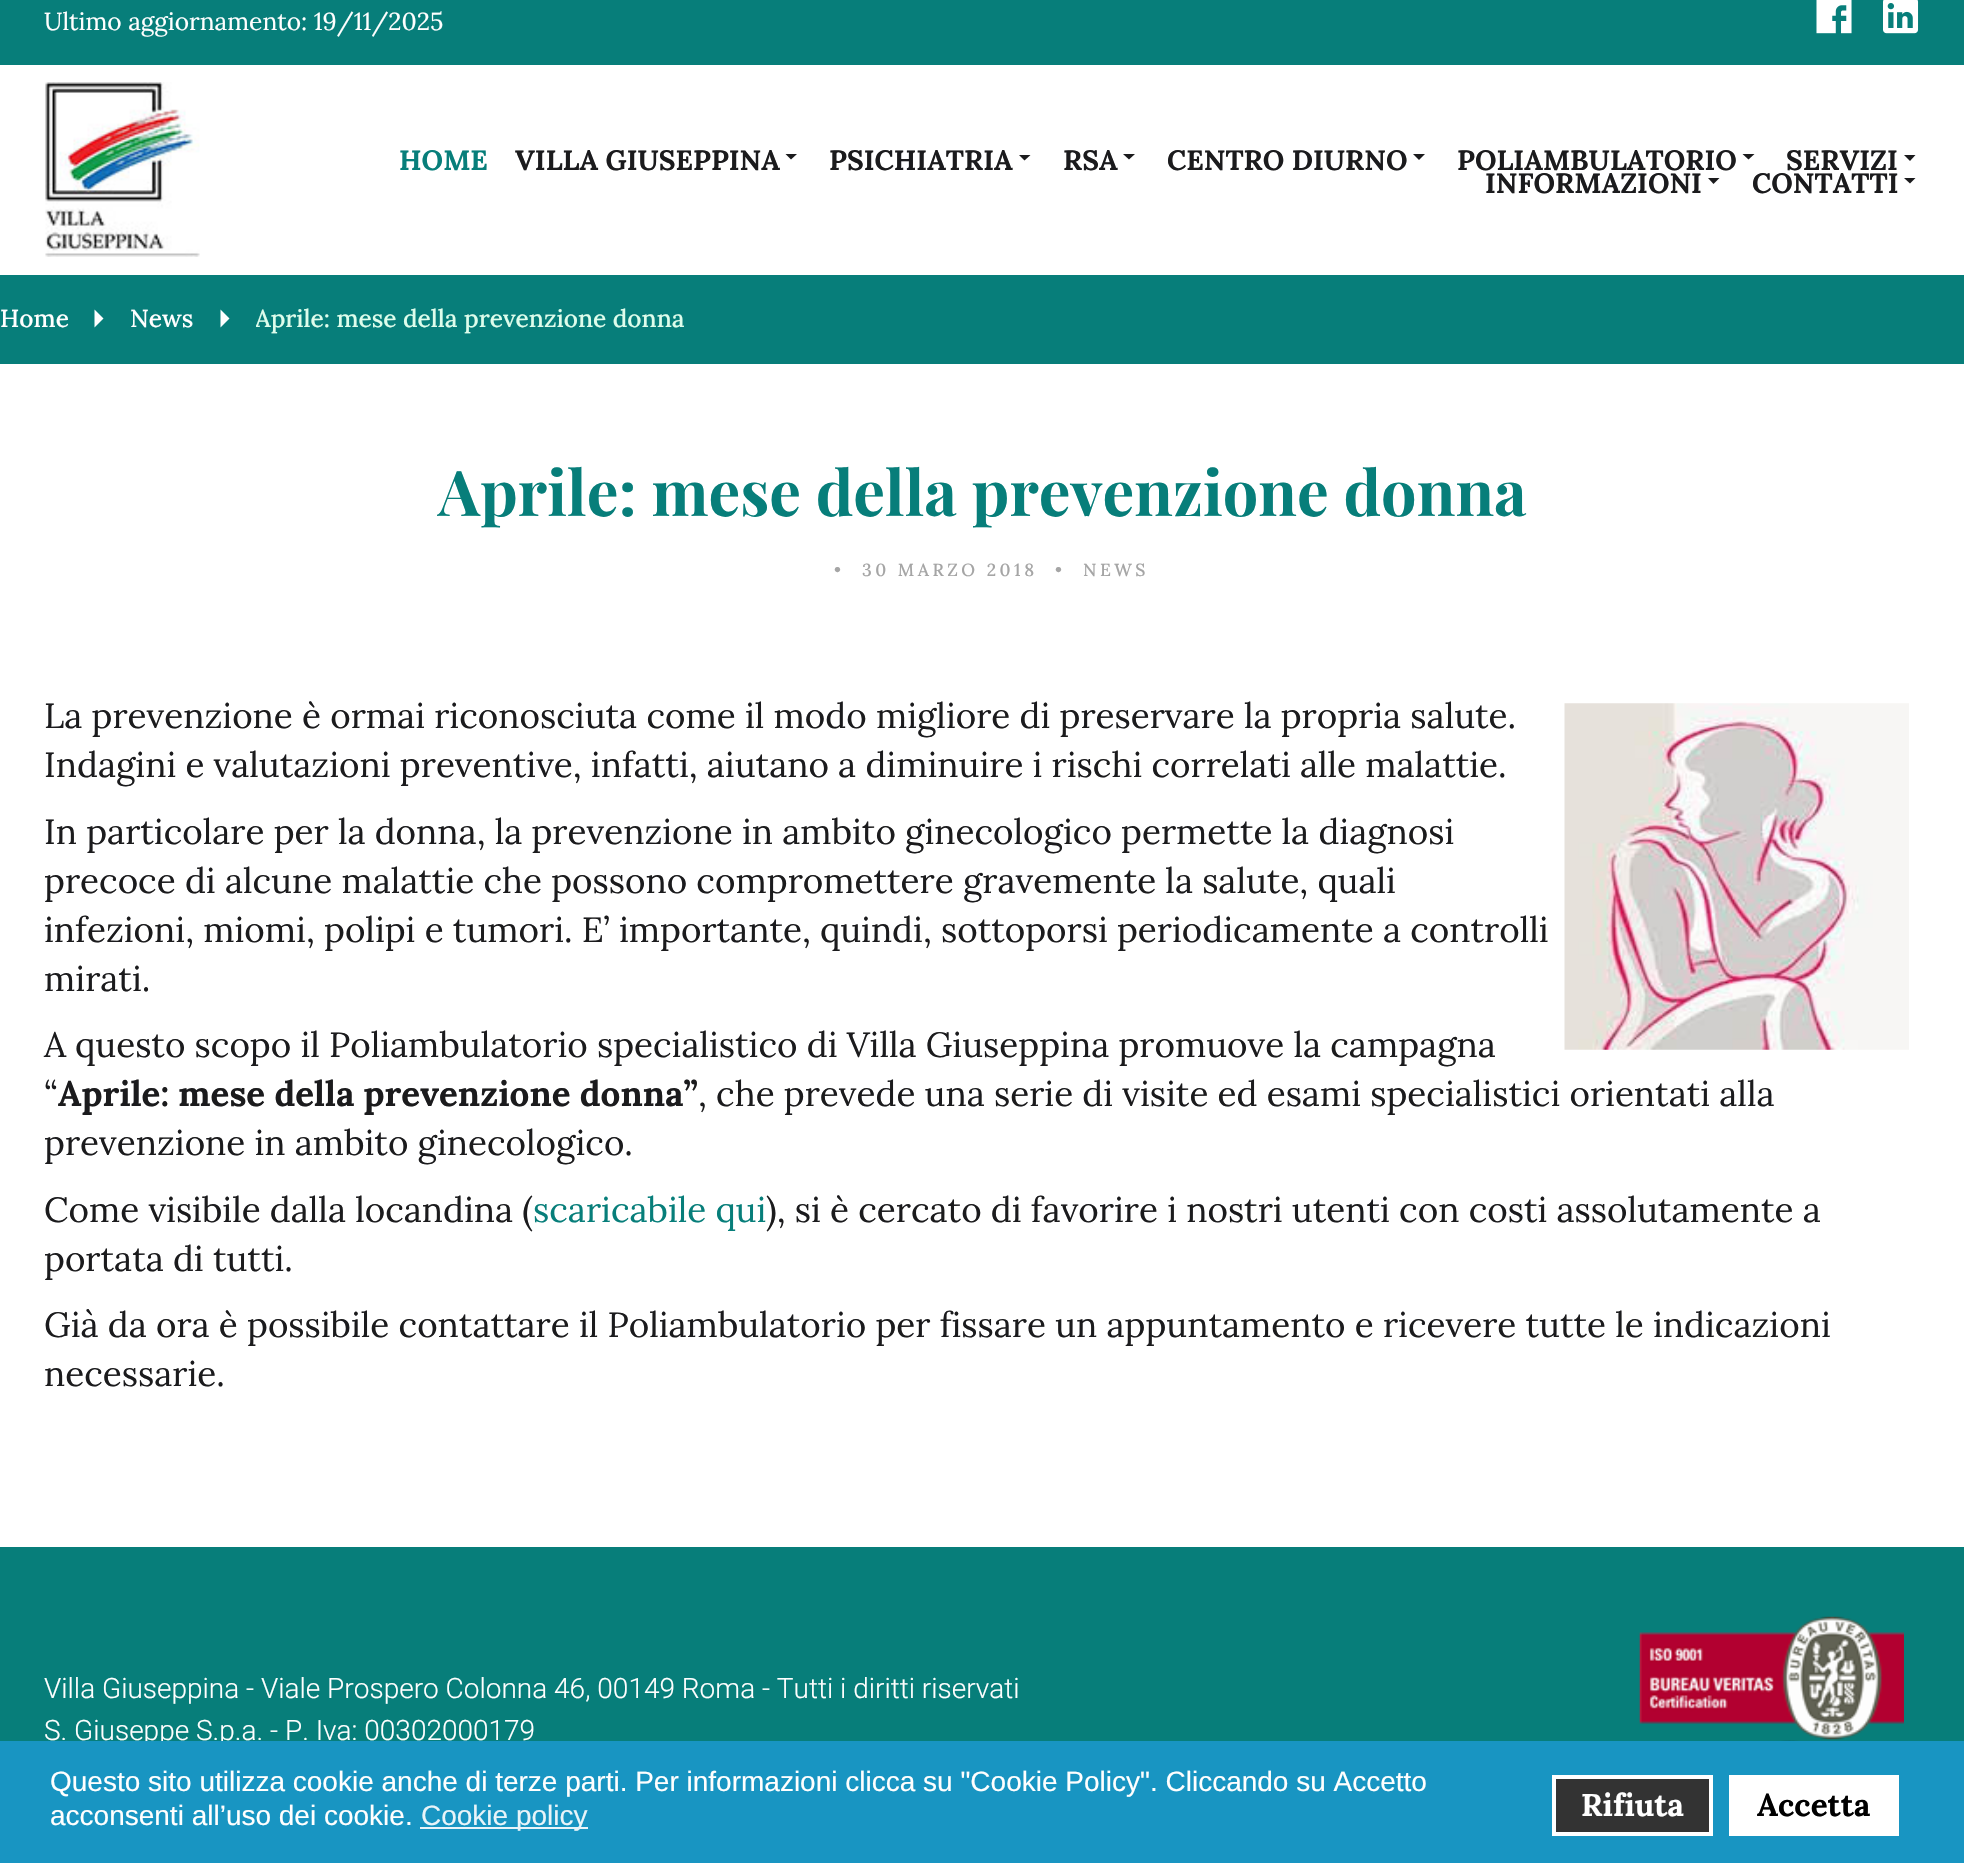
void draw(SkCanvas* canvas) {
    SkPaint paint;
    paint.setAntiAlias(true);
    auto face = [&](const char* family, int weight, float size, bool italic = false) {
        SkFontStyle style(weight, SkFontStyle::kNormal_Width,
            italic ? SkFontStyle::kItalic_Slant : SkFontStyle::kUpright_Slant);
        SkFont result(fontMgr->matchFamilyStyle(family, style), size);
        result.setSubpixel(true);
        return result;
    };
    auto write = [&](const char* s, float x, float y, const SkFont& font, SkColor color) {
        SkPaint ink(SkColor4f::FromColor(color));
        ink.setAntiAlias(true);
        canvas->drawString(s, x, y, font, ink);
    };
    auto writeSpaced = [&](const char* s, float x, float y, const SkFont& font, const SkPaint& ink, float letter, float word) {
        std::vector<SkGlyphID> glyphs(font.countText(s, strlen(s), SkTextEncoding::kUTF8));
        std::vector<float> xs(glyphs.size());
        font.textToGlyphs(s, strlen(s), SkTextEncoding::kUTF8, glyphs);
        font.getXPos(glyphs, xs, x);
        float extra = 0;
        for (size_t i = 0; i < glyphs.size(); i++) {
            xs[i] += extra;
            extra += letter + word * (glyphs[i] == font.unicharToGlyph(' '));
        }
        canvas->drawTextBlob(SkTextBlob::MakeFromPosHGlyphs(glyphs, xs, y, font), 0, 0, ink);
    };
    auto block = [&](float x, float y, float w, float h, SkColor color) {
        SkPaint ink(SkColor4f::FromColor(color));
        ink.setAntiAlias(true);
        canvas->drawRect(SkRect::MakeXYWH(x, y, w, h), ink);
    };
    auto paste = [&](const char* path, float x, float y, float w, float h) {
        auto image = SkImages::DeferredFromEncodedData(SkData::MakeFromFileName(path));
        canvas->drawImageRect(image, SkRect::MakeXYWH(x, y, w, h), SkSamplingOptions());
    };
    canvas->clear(SK_ColorWHITE);
    block(0, 275, 1964, 89, SkColorSetRGB(7, 126, 122));
    block(0, 0, 1964, 65, SkColorSetRGB(7, 126, 122));
    auto kFont1 = face("Lora", 400, 24.5f);
    write("Ultimo aggiornamento: 19/11/2025", 44, 30, kFont1, SK_ColorWHITE);
    paste("pic1.png", 1816, 0, 36, 34);
    paste("pic2.png", 1883, 0, 36, 34);
    paste("pic3.png", 45, 82, 155, 175);
    auto kFont2 = face("Lora", 700, 28);
    write("HOME", 399, 170, kFont2, SkColorSetRGB(7, 126, 122));
    write("VILLA GIUSEPPINA", 515, 170, kFont2, SkColorSetRGB(27, 27, 29));
    paint.setColor(SkColorSetRGB(27, 27, 29));
    canvas->drawPath(SkPathBuilder().moveTo(785.5f, 154).lineTo(797, 154).lineTo(791, 159.5f).close().detach(), paint);
    write("PSICHIATRIA", 829, 170, kFont2, SkColorSetRGB(27, 27, 29));
    canvas->drawPath(SkPathBuilder().moveTo(1019, 155).lineTo(1030.5f, 155).lineTo(1024.5f, 160.5f).close().detach(), paint);
    write("RSA", 1063, 170, kFont2, SkColorSetRGB(27, 27, 29));
    canvas->drawPath(SkPathBuilder().moveTo(1123, 154).lineTo(1135, 154).lineTo(1129, 159.5f).close().detach(), paint);
    write("CENTRO DIURNO", 1167, 170, kFont2, SkColorSetRGB(27, 27, 29));
    canvas->drawPath(SkPathBuilder().moveTo(1413, 154).lineTo(1425, 154).lineTo(1419, 160).close().detach(), paint);
    write("POLIAMBULATORIO", 1457, 170, kFont2, SkColorSetRGB(27, 27, 29));
    canvas->drawPath(SkPathBuilder().moveTo(1742.5f, 154).lineTo(1754.5f, 154).lineTo(1748.5f, 159.5f).close().detach(), paint);
    write("SERVIZI", 1786, 170, kFont2, SkColorSetRGB(27, 27, 29));
    canvas->drawPath(SkPathBuilder().moveTo(1904, 155).lineTo(1915.5f, 155).lineTo(1910, 161).close().detach(), paint);
    write("INFORMAZIONI", 1485, 193, kFont2, SkColorSetRGB(27, 27, 29));
    canvas->drawPath(SkPathBuilder().moveTo(1708, 178).lineTo(1719.5f, 178).lineTo(1713.5f, 184).close().detach(), paint);
    write("CONTATTI", 1752, 193, kFont2, SkColorSetRGB(27, 27, 29));
    canvas->drawPath(SkPathBuilder().moveTo(1904, 178).lineTo(1915.5f, 178).lineTo(1910, 183.5f).close().detach(), paint);
    auto kFont3 = face("Lora", 500, 24.5f);
    write("Home", 0, 327, kFont3, SK_ColorWHITE);
    paint.setColor(SK_ColorWHITE);
    canvas->drawPath(SkPathBuilder().moveTo(94.5f, 327.5f).lineTo(94.5f, 309.5f).lineTo(103.5f, 318.5f).close().detach(), paint);
    write("News", 130, 327, kFont3, SK_ColorWHITE);
    canvas->drawPath(SkPathBuilder().moveTo(220.5f, 327.5f).lineTo(220.5f, 309.5f).lineTo(229.5f, 318.5f).close().detach(), paint);
    canvas->save();
    canvas->clipRect(SkRect::MakeXYWH(256, 277, 455, 84));
    write("Aprile: mese della prevenzione donna", 255, 327, kFont3, SkColorSetRGB(222, 253, 236));
    canvas->restore();
    auto kFont4 = face("Playfair Display", 700, 63);
    write("Aprile: mese della prevenzione donna", 438, 516, kFont4, SkColorSetRGB(7, 126, 122));
    auto kFont5 = face("Lora", 500, 17.5f);
    paint.setColor(SkColorSetRGB(165, 165, 165));
    writeSpaced("•", 834, 576, kFont5, paint, 3.5f, 0);
    writeSpaced("30 MARZO 2018", 862, 576, kFont5, paint, 3.5f, 0);
    writeSpaced("•", 1055, 576, kFont5, paint, 3.5f, 0);
    writeSpaced("NEWS", 1083, 576, kFont5, paint, 3.5f, 0);
    auto kFont6 = face("Lora", 400, 35);
    write("La prevenzione è ormai riconosciuta come il modo migliore di preservare la propria salute.", 44, 728, kFont6, SkColorSetRGB(27, 27, 29));
    paste("pic4.png", 1564, 703, 345, 347);
    write("Indagini e valutazioni preventive, infatti, aiutano a diminuire i rischi correlati alle malattie.", 44, 777, kFont6, SkColorSetRGB(27, 27, 29));
    write("In particolare per la donna, la prevenzione in ambito ginecologico permette la diagnosi", 44, 844, kFont6, SkColorSetRGB(27, 27, 29));
    write("precoce di alcune malattie che possono compromettere gravemente la salute, quali", 44, 893, kFont6, SkColorSetRGB(27, 27, 29));
    write("infezioni, miomi, polipi e tumori. E’ importante, quindi, sottoporsi periodicamente a controlli", 44, 942, kFont6, SkColorSetRGB(27, 27, 29));
    write("mirati.", 44, 991, kFont6, SkColorSetRGB(27, 27, 29));
    write("A questo scopo il Poliambulatorio specialistico di Villa Giuseppina promuove la campagna", 44, 1057, kFont6, SkColorSetRGB(27, 27, 29));
    write("“", 44, 1106, kFont6, SkColorSetRGB(27, 27, 29));
    auto kFont7 = face("Lora", 700, 35);
    write("Aprile: mese della prevenzione donna”", 58, 1106, kFont7, SkColorSetRGB(27, 27, 29));
    write(", che prevede una serie di visite ed esami specialistici orientati alla", 698, 1106, kFont6, SkColorSetRGB(27, 27, 29));
    write("prevenzione in ambito ginecologico.", 44, 1155, kFont6, SkColorSetRGB(27, 27, 29));
    write("Come visibile dalla locandina (", 44, 1222, kFont6, SkColorSetRGB(27, 27, 29));
    write("scaricabile qui", 533, 1222, kFont6, SkColorSetRGB(7, 126, 122));
    write("), si è cercato di favorire i nostri utenti con costi assolutamente a", 766, 1222, kFont6, SkColorSetRGB(27, 27, 29));
    write("portata di tutti.", 44, 1271, kFont6, SkColorSetRGB(27, 27, 29));
    write("Già da ora è possibile contattare il Poliambulatorio per fissare un appuntamento e ricevere tutte le indicazioni", 44, 1337, kFont6, SkColorSetRGB(27, 27, 29));
    write("necessarie.", 44, 1386, kFont6, SkColorSetRGB(27, 27, 29));
    block(0, 1547, 1964, 194, SkColorSetRGB(7, 126, 122));
    auto kFont8 = face("Roboto", 300, 28);
    write("Villa Giuseppina - Viale Prospero Colonna 46, 00149 Roma - Tutti i diritti riservati", 44, 1698, kFont8, SK_ColorWHITE);
    write("S. Giuseppe S.p.a. - P. Iva: 00302000179", 44, 1740, kFont8, SK_ColorWHITE);
    paste("pic5.png", 1639, 1616, 265, 124);
    paste("pic6.png", 1780, 1740, 19, 1);
    block(0, 1741, 1964, 122, SkColorSetRGB(24, 149, 194));
    auto kFont9 = face("Liberation Sans", 400, 28);
    write("Questo sito utilizza cookie anche di terze parti. Per informazioni clicca su \"Cookie Policy\". Cliccando su Accetto", 50, 1791, kFont9, SK_ColorWHITE);
    write("acconsenti all’uso dei cookie.", 50, 1825, kFont9, SK_ColorWHITE);
    block(420, 1827, 168, 2, SkColorSetRGB(232, 244, 249));
    write("Cookie policy", 421, 1825, kFont9, SkColorSetRGB(232, 244, 249));
    paint.setColor(SkColorSetRGB(51, 51, 51));
    canvas->drawRect(SkRect::MakeXYWH(1554, 1777, 157, 57), paint);
    paint.setStyle(SkPaint::kStroke_Style);
    paint.setStrokeWidth(4);
    paint.setColor(SK_ColorWHITE);
    canvas->drawRect(SkRect::MakeXYWH(1554, 1777, 157, 57), paint);
    auto kFont10 = face("Lora", 700, 31.5f);
    write("Rifiuta", 1581, 1816, kFont10, SK_ColorWHITE);
    block(1729, 1775, 170, 61, SK_ColorWHITE);
    write("Accetta", 1757, 1816, kFont10, SK_ColorBLACK);
}
